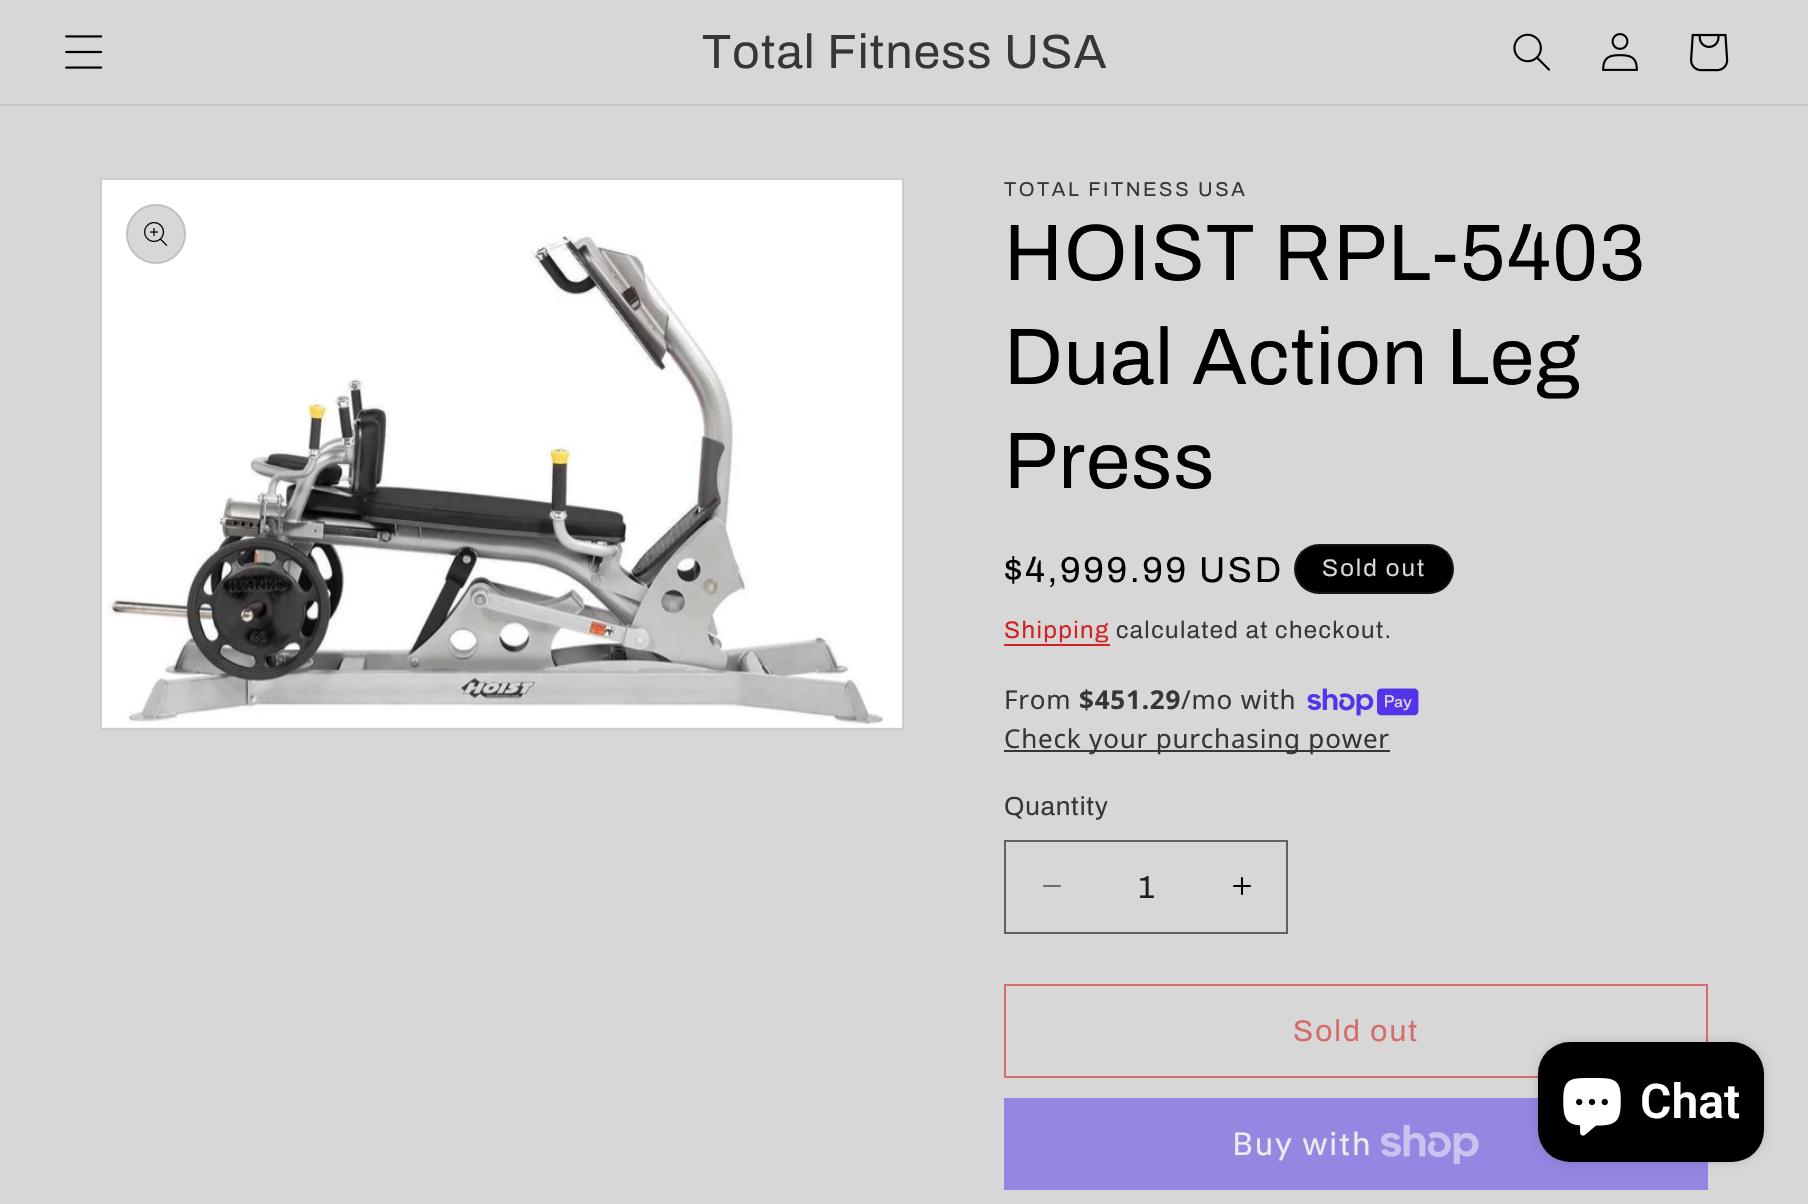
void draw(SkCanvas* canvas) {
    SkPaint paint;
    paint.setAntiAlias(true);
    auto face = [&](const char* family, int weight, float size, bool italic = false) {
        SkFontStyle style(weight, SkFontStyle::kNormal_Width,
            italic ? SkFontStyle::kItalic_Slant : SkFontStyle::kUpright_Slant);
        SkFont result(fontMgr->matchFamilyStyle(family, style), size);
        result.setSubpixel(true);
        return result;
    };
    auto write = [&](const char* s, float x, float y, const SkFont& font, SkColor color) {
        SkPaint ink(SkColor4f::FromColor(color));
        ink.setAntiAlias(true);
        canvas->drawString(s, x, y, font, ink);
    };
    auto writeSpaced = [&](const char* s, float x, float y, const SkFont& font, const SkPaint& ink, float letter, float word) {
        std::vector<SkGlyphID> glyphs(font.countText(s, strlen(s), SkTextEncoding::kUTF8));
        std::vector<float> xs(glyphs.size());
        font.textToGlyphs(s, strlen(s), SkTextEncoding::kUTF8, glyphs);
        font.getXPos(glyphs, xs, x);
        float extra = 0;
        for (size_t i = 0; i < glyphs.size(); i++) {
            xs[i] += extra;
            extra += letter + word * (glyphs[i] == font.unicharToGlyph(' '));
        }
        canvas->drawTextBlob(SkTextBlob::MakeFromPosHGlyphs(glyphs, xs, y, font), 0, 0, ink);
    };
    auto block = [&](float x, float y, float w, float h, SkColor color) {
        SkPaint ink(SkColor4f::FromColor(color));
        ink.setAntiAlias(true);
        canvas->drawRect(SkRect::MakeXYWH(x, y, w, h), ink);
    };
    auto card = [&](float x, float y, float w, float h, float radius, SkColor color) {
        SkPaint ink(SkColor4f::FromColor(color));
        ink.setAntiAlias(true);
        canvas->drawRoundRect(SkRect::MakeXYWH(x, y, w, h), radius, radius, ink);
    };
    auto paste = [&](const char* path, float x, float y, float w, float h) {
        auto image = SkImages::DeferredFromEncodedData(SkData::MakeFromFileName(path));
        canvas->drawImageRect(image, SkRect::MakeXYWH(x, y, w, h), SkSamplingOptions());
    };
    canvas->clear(SkColorSetRGB(215, 215, 215));
    block(0, 104, 1808, 2, SkColorSetRGB(198, 198, 198));
    paste("pic1.png", 65, 35, 38, 34);
    auto kFont1 = face("Archivo", 400, 48);
    paint.setColor(SkColorSetRGB(54, 54, 54));
    writeSpaced("Total Fitness USA", 702, 68, kFont1, paint, 1.25f, 0);
    paste("pic2.png", 1513, 33, 37, 38);
    paste("pic3.png", 1602, 33, 36, 38);
    paste("pic4.png", 1690, 33, 39, 39);
    paint.setStyle(SkPaint::kStroke_Style);
    paint.setStrokeWidth(2);
    paint.setColor(SkColorSetRGB(204, 204, 204));
    canvas->drawRect(SkRect::MakeXYWH(101, 179, 802, 550), paint);
    paste("pic5.png", 102, 180, 800, 548);
    paint.setStyle(SkPaint::kFill_Style);
    paint.setColor(SkColorSetRGB(215, 215, 215));
    canvas->drawCircle(156, 234, 30, paint);
    paint.setStyle(SkPaint::kStroke_Style);
    paint.setColor(SkColorSetARGB(26, 0, 0, 0));
    canvas->drawCircle(156, 234, 29, paint);
    paste("pic6.png", 144, 222, 24, 24);
    auto kFont2 = face("Archivo", 400, 20);
    paint.setStyle(SkPaint::kFill_Style);
    paint.setColor(SkColorSetRGB(54, 54, 54));
    writeSpaced("TOTAL FITNESS USA", 1004, 196, kFont2, paint, 2.6f, 0);
    auto kFont3 = face("Archivo", 400, 80);
    paint.setColor(SK_ColorBLACK);
    writeSpaced("HOIST RPL-5403", 1004, 280, kFont3, paint, 1.25f, 0);
    writeSpaced("Dual Action Leg", 1004, 384, kFont3, paint, 1.25f, 0);
    writeSpaced("Press", 1004, 488, kFont3, paint, 1.25f, 0);
    auto kFont4 = face("Archivo", 400, 36);
    writeSpaced("$4,999.99 USD", 1004, 582, kFont4, paint, 2.6f, 0);
    card(1294, 544, 160, 50, 25, SK_ColorBLACK);
    paint.setStyle(SkPaint::kStroke_Style);
    paint.setColor(SkColorSetARGB(26, 215, 215, 215));
    canvas->drawRoundRect(SkRect::MakeXYWH(1295, 545, 158, 48), 24, 24, paint);
    auto kFont5 = face("Archivo", 400, 24);
    paint.setStyle(SkPaint::kFill_Style);
    paint.setColor(SkColorSetRGB(215, 215, 215));
    writeSpaced("Sold out", 1322, 576, kFont5, paint, 2, 0);
    paint.setColor(SkColorSetRGB(210, 33, 32));
    writeSpaced("Shipping", 1004, 638, kFont5, paint, 1.4f, 0);
    block(1004, 644, 106, 2, SkColorSetRGB(210, 33, 32));
    paint.setColor(SkColorSetRGB(54, 54, 54));
    writeSpaced("calculated at checkout.", 1116, 638, kFont5, paint, 1.4f, 0);
    auto kFont6 = face("Noto Sans", 400, 26);
    writeSpaced("From", 1004, 709, kFont6, paint, 0.8f, 0);
    auto kFont7 = face("Noto Sans", 700, 26);
    writeSpaced("$451.29", 1079, 709, kFont7, paint, 0.8f, 0);
    writeSpaced("/mo with", 1181, 709, kFont6, paint, 0.8f, 0);
    paste("pic7.png", 1307, 688, 112, 28);
    block(1004, 750, 386, 2, SkColorSetRGB(54, 54, 54));
    writeSpaced("Check your purchasing power", 1004, 748, kFont6, paint, 0.8f, 0);
    auto kFont8 = face("Archivo", 400, 26);
    writeSpaced("Quantity", 1004, 815, kFont8, paint, 0.8f, 0);
    paste("pic8.png", 1043, 885, 18, 2);
    paste("pic9.png", 1233, 877, 18, 18);
    paint.setStyle(SkPaint::kStroke_Style);
    paint.setColor(SkColorSetRGB(97, 97, 97));
    canvas->drawRect(SkRect::MakeXYWH(1005, 841, 282, 92), paint);
    auto kFont9 = face("Archivo", 400, 32);
    write("1", 1138, 898, kFont9, SkColorSetRGB(32, 32, 32));
    paint.setColor(SkColorSetRGB(212, 108, 108));
    canvas->drawRect(SkRect::MakeXYWH(1005, 985, 702, 92), paint);
    auto kFont10 = face("Archivo", 400, 30);
    paint.setStyle(SkPaint::kFill_Style);
    writeSpaced("Sold out", 1293, 1041, kFont10, paint, 2, 0);
    block(1004, 1098, 704, 92, SkColorSetRGB(150, 133, 225));
    auto kFont11 = face("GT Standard", 400, 32);
    paint.setColor(SkColorSetRGB(235, 235, 235));
    writeSpaced("Buy with", 1232, 1155, kFont11, paint, 1.25f, 0);
    paste("pic10.png", 1381, 1125, 98, 39);
    paint.setColor(SkColorSetARGB(38, 0, 0, 0));
    paint.setMaskFilter(SkMaskFilter::MakeBlur(kNormal_SkBlurStyle, 5));
    canvas->drawRoundRect(SkRect::MakeXYWH(1538, 1042, 226, 120), 32, 32, paint);
    paint.setMaskFilter(nullptr);
    card(1538, 1042, 226, 120, 32, SK_ColorBLACK);
    paste("pic11.png", 1563, 1078, 58, 58);
    auto kFont12 = face("Roboto", 600, 48);
    write("Chat", 1640, 1118, kFont12, SK_ColorWHITE);
}
